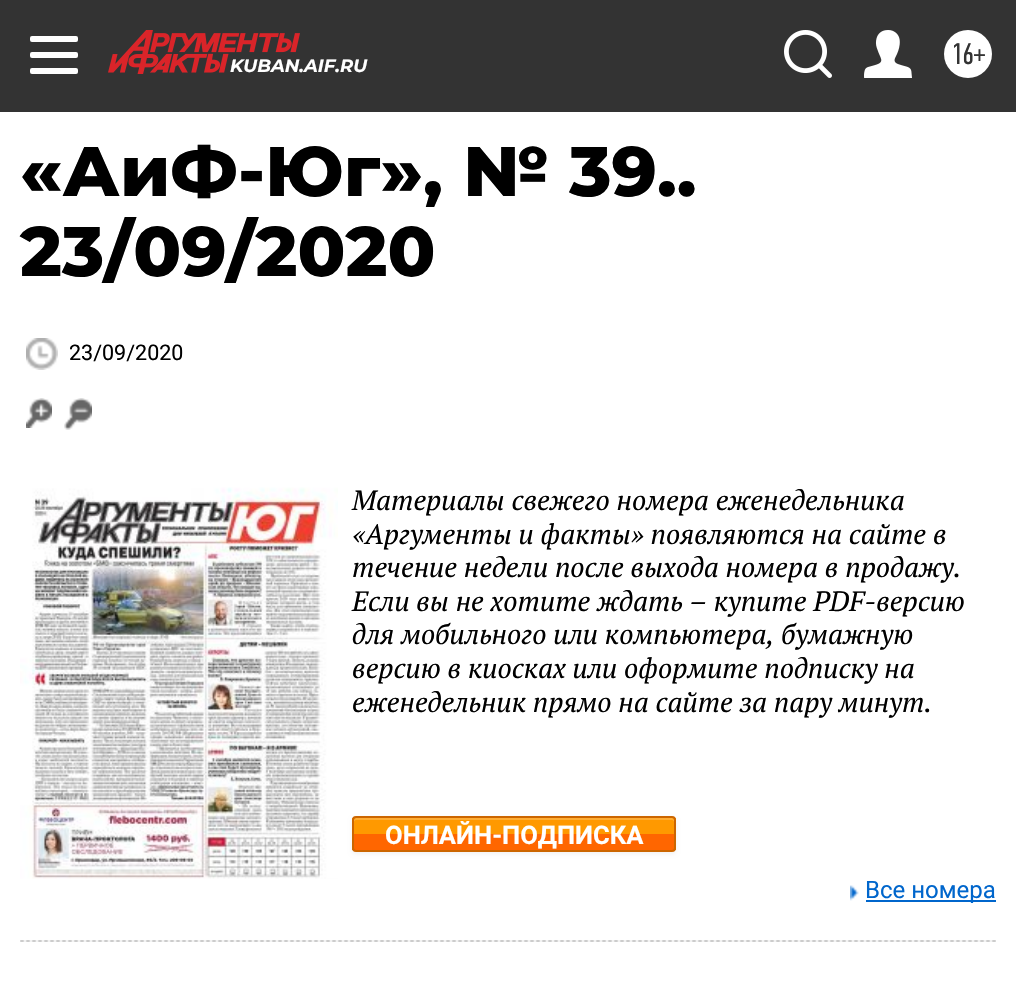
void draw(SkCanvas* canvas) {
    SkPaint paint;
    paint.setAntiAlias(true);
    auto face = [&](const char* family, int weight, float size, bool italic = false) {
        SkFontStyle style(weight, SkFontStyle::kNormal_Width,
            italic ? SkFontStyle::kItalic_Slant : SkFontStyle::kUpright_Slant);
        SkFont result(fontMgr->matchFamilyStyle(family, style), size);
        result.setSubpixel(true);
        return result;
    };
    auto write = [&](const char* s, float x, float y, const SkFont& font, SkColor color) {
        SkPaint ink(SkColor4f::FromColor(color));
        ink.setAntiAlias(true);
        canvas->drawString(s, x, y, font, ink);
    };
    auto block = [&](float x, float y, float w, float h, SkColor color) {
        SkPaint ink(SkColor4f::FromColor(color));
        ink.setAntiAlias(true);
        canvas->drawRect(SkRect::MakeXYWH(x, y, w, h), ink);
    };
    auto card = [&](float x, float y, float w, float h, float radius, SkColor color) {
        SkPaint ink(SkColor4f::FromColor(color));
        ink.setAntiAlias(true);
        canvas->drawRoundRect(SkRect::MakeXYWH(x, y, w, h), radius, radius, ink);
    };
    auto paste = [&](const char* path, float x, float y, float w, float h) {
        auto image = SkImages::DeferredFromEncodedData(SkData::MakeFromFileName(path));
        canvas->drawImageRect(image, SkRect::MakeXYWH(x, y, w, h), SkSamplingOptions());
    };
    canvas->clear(SK_ColorWHITE);
    block(0, 0, 1016, 112, SkColorSetRGB(51, 51, 51));
    card(30, 36, 48, 6, 2, SK_ColorWHITE);
    card(30, 52, 48, 6, 2, SK_ColorWHITE);
    card(30, 68, 48, 6, 2, SK_ColorWHITE);
    paste("pic1.png", 108, 30, 192, 44);
    auto kFont1 = face("Montserrat", 700, 18, true);
    write("KUBAN.AIF.RU", 230, 72, kFont1, SK_ColorWHITE);
    paste("pic2.png", 784, 30, 48, 48);
    paste("pic3.png", 864, 30, 48, 48);
    paint.setColor(SK_ColorWHITE);
    canvas->drawCircle(968, 54, 24, paint);
    auto kFont2 = face("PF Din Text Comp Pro", 400, 30);
    write("16+", 951, 64, kFont2, SkColorSetRGB(51, 51, 51));
    paste("pic4.png", 20, 940, 976, 2);
    auto kFont3 = face("Montserrat", 800, 70);
    write("«АиФ-Юг», № 39..", 20, 196, kFont3, SK_ColorBLACK);
    write("23/09/2020", 20, 276, kFont3, SK_ColorBLACK);
    paste("pic5.png", 26, 338, 32, 32);
    auto kFont4 = face("Roboto", 400, 21.5f);
    write("23/09/2020", 69, 360, kFont4, SK_ColorBLACK);
    paste("pic6.png", 26, 398, 26, 30);
    paste("pic7.png", 64, 398, 28, 32);
    paste("pic8.png", 20, 487, 318, 392);
    auto kFont5 = face("PT Serif", 400, 28, true);
    write("Материалы свежего номера еженедельника", 352, 510, kFont5, SK_ColorBLACK);
    write("«Аргументы и факты» появляются на сайте в", 352, 544, kFont5, SK_ColorBLACK);
    write("течение недели после выхода номера в продажу.", 352, 577, kFont5, SK_ColorBLACK);
    write("Если вы не хотите ждать – купите PDF-версию", 352, 611, kFont5, SK_ColorBLACK);
    write("для мобильного или компьютера, бумажную", 352, 644, kFont5, SK_ColorBLACK);
    write("версию в киосках или оформите подписку на", 352, 678, kFont5, SK_ColorBLACK);
    write("еженедельник прямо на сайте за пару минут.", 352, 712, kFont5, SK_ColorBLACK);
    paint.setColor(SkColorSetARGB(13, 0, 0, 0));
    paint.setMaskFilter(SkMaskFilter::MakeBlur(kNormal_SkBlurStyle, 2));
    canvas->drawRoundRect(SkRect::MakeXYWH(352, 818, 324, 36), 4, 4, paint);
    paint.setMaskFilter(nullptr);
    block(352, 818, 324, 16, SkColorSetRGB(255, 153, 0));
    block(352, 834, 324, 16, SkColorSetRGB(255, 102, 0));
    paint.setColor(SkColorSetRGB(255, 173, 51));
    canvas->drawPath(SkPathBuilder().moveTo(356, 820).lineTo(672, 820).cubicTo(673, 820, 674, 821, 674, 822).lineTo(674, 820).cubicTo(674, 819, 673, 818, 672, 818).lineTo(356, 818).cubicTo(355, 818, 354, 819, 354, 820).lineTo(354, 822).cubicTo(354, 821, 355, 820, 356, 820).close().detach(), paint);
    paint.setStyle(SkPaint::kStroke_Style);
    paint.setStrokeWidth(2);
    paint.setColor(SkColorSetRGB(204, 102, 0));
    canvas->drawRoundRect(SkRect::MakeXYWH(353, 817, 322, 34), 3, 3, paint);
    auto kFont6 = face("Roboto", 700, 25.6f);
    write("ОНЛАЙН-ПОДПИСКА", 385, 844, kFont6, SK_ColorWHITE);
    paste("pic9.png", 850, 885, 9, 16);
    block(866, 900, 130, 2, SkColorSetRGB(0, 102, 204));
    auto kFont7 = face("Roboto", 400, 24);
    write("Все номера", 865, 898, kFont7, SkColorSetRGB(0, 102, 204));
}
